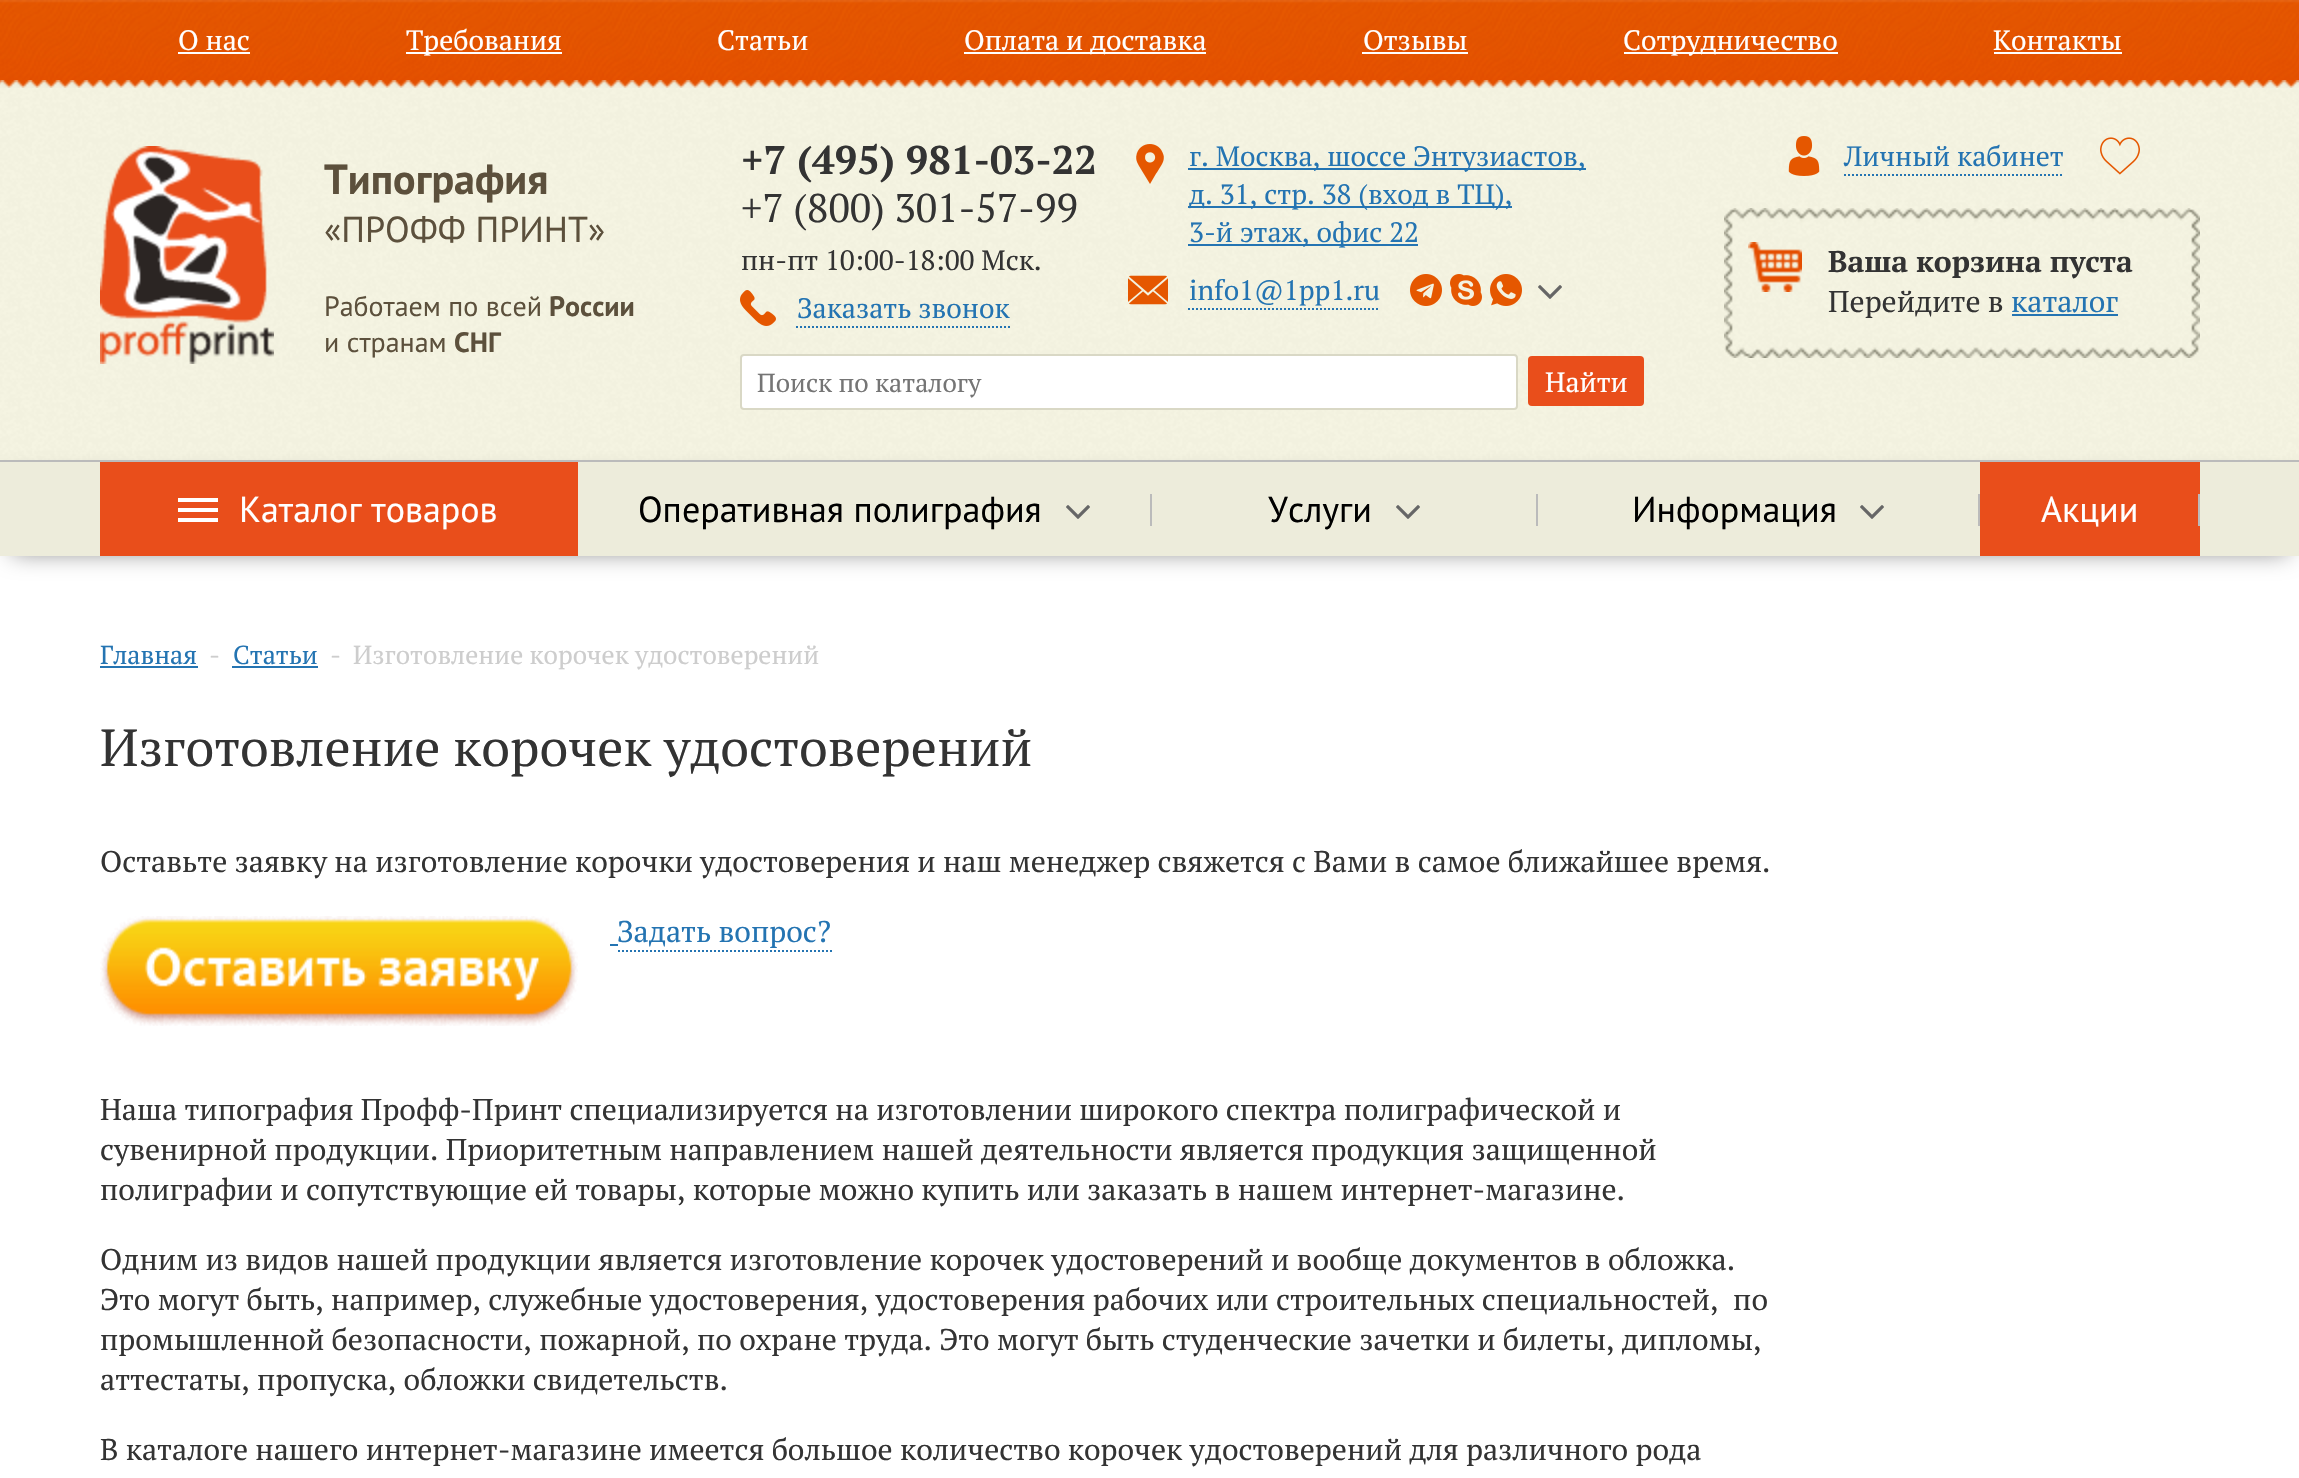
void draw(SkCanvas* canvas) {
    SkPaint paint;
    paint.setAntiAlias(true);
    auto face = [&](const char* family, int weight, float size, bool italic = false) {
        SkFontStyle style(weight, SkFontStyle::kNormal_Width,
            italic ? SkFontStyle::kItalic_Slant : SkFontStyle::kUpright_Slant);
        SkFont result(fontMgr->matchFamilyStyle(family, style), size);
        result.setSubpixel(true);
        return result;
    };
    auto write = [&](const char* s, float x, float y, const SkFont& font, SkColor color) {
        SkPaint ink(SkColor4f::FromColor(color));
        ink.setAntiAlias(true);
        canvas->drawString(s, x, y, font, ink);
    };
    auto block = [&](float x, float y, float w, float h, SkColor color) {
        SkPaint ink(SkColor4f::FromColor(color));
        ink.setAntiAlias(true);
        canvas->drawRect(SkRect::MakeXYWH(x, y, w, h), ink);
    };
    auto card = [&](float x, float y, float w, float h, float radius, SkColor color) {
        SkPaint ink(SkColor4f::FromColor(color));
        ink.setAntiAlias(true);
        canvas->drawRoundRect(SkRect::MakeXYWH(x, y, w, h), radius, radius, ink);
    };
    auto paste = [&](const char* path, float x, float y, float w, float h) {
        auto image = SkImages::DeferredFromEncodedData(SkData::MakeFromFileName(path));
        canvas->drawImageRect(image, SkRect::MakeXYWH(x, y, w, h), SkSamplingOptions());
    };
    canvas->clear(SK_ColorWHITE);
    paste("pic1.png", 0, 0, 2299, 88);
    auto kFont1 = face("PT Serif", 400, 28);
    write("О нас", 178, 50, kFont1, SK_ColorWHITE);
    block(178, 52, 72, 2, SK_ColorWHITE);
    block(406, 52, 156, 2, SK_ColorWHITE);
    write("Требования", 406, 50, kFont1, SK_ColorWHITE);
    write("Статьи", 717, 50, kFont1, SK_ColorWHITE);
    block(964, 52, 242, 2, SK_ColorWHITE);
    write("Оплата и доставка", 964, 50, kFont1, SK_ColorWHITE);
    write("Отзывы", 1363, 50, kFont1, SK_ColorWHITE);
    block(1362, 52, 106, 2, SK_ColorWHITE);
    block(1624, 52, 214, 2, SK_ColorWHITE);
    write("Сотрудничество", 1623, 50, kFont1, SK_ColorWHITE);
    write("Контакты", 1993, 50, kFont1, SK_ColorWHITE);
    block(1994, 52, 128, 2, SK_ColorWHITE);
    paste("pic2.png", 0, 88, 2299, 372);
    paste("pic3.png", 0, 80, 2299, 8);
    paste("pic4.png", 100, 146, 174, 218);
    auto kFont2 = face("PT Sans", 700, 42);
    write("Типография", 324, 194, kFont2, SkColorSetRGB(92, 80, 60));
    auto kFont3 = face("PT Sans", 400, 36);
    write("«ПРОФФ ПРИНТ»", 324, 242, kFont3, SkColorSetRGB(92, 80, 60));
    auto kFont4 = face("PT Sans", 400, 28);
    write("Работаем по всей", 324, 316, kFont4, SkColorSetRGB(92, 80, 60));
    auto kFont5 = face("PT Sans", 700, 28);
    write("России", 549, 316, kFont5, SkColorSetRGB(92, 80, 60));
    write("и странам", 324, 352, kFont4, SkColorSetRGB(92, 80, 60));
    write("СНГ", 454, 352, kFont5, SkColorSetRGB(92, 80, 60));
    auto kFont6 = face("PT Serif", 700, 40);
    write("+7 (495) 981-03-22", 741, 174, kFont6, SkColorSetRGB(51, 51, 51));
    auto kFont7 = face("PT Serif", 400, 40);
    write("+7 (800) 301-57-99", 741, 222, kFont7, SkColorSetRGB(51, 51, 51));
    write("пн-пт 10:00-18:00 Мск.", 741, 270, kFont1, SkColorSetRGB(51, 51, 51));
    paste("pic5.png", 740, 290, 36, 36);
    write("Заказать звонок", 797, 318, kFont1, SkColorSetRGB(36, 116, 178));
    paint.setStyle(SkPaint::kStroke_Style);
    paint.setStrokeWidth(2);
    paint.setColor(SkColorSetRGB(36, 116, 178));
    paint.setPathEffect(SkDashPathEffect::Make({{2, 2}}, 0));
    canvas->drawPath(SkPathBuilder().moveTo(796, 327).lineTo(1010, 327).detach(), paint);
    paint.setPathEffect(nullptr);
    paste("pic6.png", 1136, 144, 28, 40);
    block(1188, 168, 398, 2, SkColorSetRGB(36, 116, 178));
    write("г. Москва, шоссе Энтузиастов,", 1189, 166, kFont1, SkColorSetRGB(36, 116, 178));
    block(1188, 206, 324, 2, SkColorSetRGB(36, 116, 178));
    write("д. 31, стр. 38 (вход в ТЦ),", 1189, 204, kFont1, SkColorSetRGB(36, 116, 178));
    block(1188, 244, 230, 2, SkColorSetRGB(36, 116, 178));
    write("3-й этаж, офис 22", 1189, 242, kFont1, SkColorSetRGB(36, 116, 178));
    paste("pic7.png", 1128, 275, 40, 30);
    write("info1@1pp1.ru", 1189, 300, kFont1, SkColorSetRGB(36, 116, 178));
    paint.setPathEffect(SkDashPathEffect::Make({{2, 2}}, 0));
    canvas->drawPath(SkPathBuilder().moveTo(1188, 309).lineTo(1380, 309).detach(), paint);
    paint.setPathEffect(nullptr);
    paste("pic8.png", 1410, 274, 32, 32);
    paste("pic9.png", 1450, 274, 32, 32);
    paste("pic10.png", 1490, 274, 32, 32);
    paste("pic11.png", 1538, 285, 24, 14);
    paint.setStyle(SkPaint::kFill_Style);
    paint.setColor(SK_ColorWHITE);
    canvas->drawRoundRect(SkRect::MakeXYWH(741, 355, 776, 54), 3, 3, paint);
    paint.setStyle(SkPaint::kStroke_Style);
    paint.setColor(SkColorSetRGB(217, 216, 197));
    canvas->drawRoundRect(SkRect::MakeXYWH(741, 355, 776, 54), 3, 3, paint);
    auto kFont8 = face("PT Serif", 400, 26);
    write("Поиск по каталогу", 757, 392, kFont8, SkColorSetRGB(117, 117, 117));
    card(1528, 356, 116, 50, 4, SkColorSetRGB(233, 78, 27));
    write("Найти", 1545, 392, kFont1, SK_ColorWHITE);
    paste("pic12.png", 1788, 136, 32, 40);
    write("Личный кабинет", 1844, 166, kFont1, SkColorSetRGB(36, 116, 178));
    paint.setColor(SkColorSetRGB(36, 116, 178));
    paint.setPathEffect(SkDashPathEffect::Make({{2, 2}}, 0));
    canvas->drawPath(SkPathBuilder().moveTo(1844, 175).lineTo(2064, 175).detach(), paint);
    paint.setPathEffect(nullptr);
    paste("pic13.png", 2100, 137, 40, 38);
    paste("pic14.png", 1724, 208, 476, 150);
    paste("pic15.png", 1748, 242, 54, 50);
    auto kFont9 = face("PT Serif", 700, 30);
    write("Ваша корзина пуста", 1828, 272, kFont9, SkColorSetRGB(51, 51, 51));
    auto kFont10 = face("PT Serif", 400, 30);
    write("Перейдите в", 1828, 312, kFont10, SkColorSetRGB(51, 51, 51));
    write("каталог", 2011, 312, kFont10, SkColorSetRGB(36, 116, 178));
    block(2012, 314, 106, 2, SkColorSetRGB(36, 116, 178));
    paint.setStyle(SkPaint::kFill_Style);
    paint.setColor(SkColorSetARGB(128, 0, 0, 0));
    paint.setMaskFilter(SkMaskFilter::MakeBlur(kNormal_SkBlurStyle, 12));
    canvas->drawRect(SkRect::MakeXYWH(12, 480, 2276, 72), paint);
    paint.setMaskFilter(nullptr);
    block(0, 462, 2299, 94, SkColorSetRGB(237, 236, 219));
    block(0, 460, 2299, 2, SkColorSetRGB(187, 187, 187));
    block(100, 462, 478, 94, SkColorSetRGB(233, 78, 27));
    paste("pic16.png", 178, 498, 40, 24);
    write("Каталог товаров", 239, 522, kFont3, SK_ColorWHITE);
    write("Оперативная полиграфия", 638, 522, kFont3, SK_ColorBLACK);
    paste("pic17.png", 1066, 505, 24, 14);
    block(1150, 494, 2, 32, SkColorSetRGB(187, 187, 187));
    write("Услуги", 1268, 522, kFont3, SK_ColorBLACK);
    paste("pic17.png", 1396, 505, 24, 14);
    block(1536, 494, 2, 32, SkColorSetRGB(187, 187, 187));
    write("Информация", 1632, 522, kFont3, SK_ColorBLACK);
    paste("pic17.png", 1860, 505, 24, 14);
    block(1978, 494, 2, 32, SkColorSetRGB(187, 187, 187));
    block(1980, 462, 220, 94, SkColorSetRGB(233, 78, 27));
    write("Акции", 2041, 522, kFont3, SK_ColorWHITE);
    block(2198, 494, 2, 32, SkColorSetRGB(187, 187, 187));
    write("Главная", 100, 664, kFont8, SkColorSetRGB(36, 116, 178));
    block(100, 666, 98, 2, SkColorSetRGB(36, 116, 178));
    write("-", 209, 664, kFont8, SkColorSetRGB(205, 205, 205));
    write("Статьи", 233, 664, kFont8, SkColorSetRGB(36, 116, 178));
    block(232, 666, 86, 2, SkColorSetRGB(36, 116, 178));
    write("-", 330, 664, kFont8, SkColorSetRGB(205, 205, 205));
    write("Изготовление корочек удостоверений", 353, 664, kFont8, SkColorSetRGB(205, 205, 205));
    auto kFont11 = face("PT Serif", 400, 52);
    write("Изготовление корочек удостоверений", 100, 766, kFont11, SkColorSetRGB(51, 51, 51));
    write("Оставьте заявку на изготовление корочки удостоверения и наш менеджер свяжется с Вами в самое ближайшее время.", 100, 872, kFont10, SkColorSetRGB(51, 51, 51));
    paste("pic18.png", 100, 916, 478, 110);
    block(610, 944, 8, 2, SkColorSetRGB(36, 116, 178));
    write("Задать вопрос?", 617, 942, kFont10, SkColorSetRGB(36, 116, 178));
    paint.setStyle(SkPaint::kStroke_Style);
    paint.setColor(SkColorSetRGB(36, 116, 178));
    paint.setPathEffect(SkDashPathEffect::Make({{2, 2}}, 0));
    canvas->drawPath(SkPathBuilder().moveTo(618, 951).lineTo(832, 951).detach(), paint);
    paint.setPathEffect(nullptr);
    write("Наша типография Профф-Принт специализируется на изготовлении широкого спектра полиграфической и", 100, 1120, kFont10, SkColorSetRGB(51, 51, 51));
    write("сувенирной продукции. Приоритетным направлением нашей деятельности является продукция защищенной", 100, 1160, kFont10, SkColorSetRGB(51, 51, 51));
    write("полиграфии и сопутствующие ей товары, которые можно купить или заказать в нашем интернет-магазине.", 100, 1200, kFont10, SkColorSetRGB(51, 51, 51));
    write("Одним из видов нашей продукции является изготовление корочек удостоверений и вообще документов в обложка.", 100, 1270, kFont10, SkColorSetRGB(51, 51, 51));
    write("Это могут быть, например, служебные удостоверения, удостоверения рабочих или строительных специальностей,  по", 100, 1310, kFont10, SkColorSetRGB(51, 51, 51));
    write("промышленной безопасности, пожарной, по охране труда. Это могут быть студенческие зачетки и билеты, дипломы,", 100, 1350, kFont10, SkColorSetRGB(51, 51, 51));
    write("аттестаты, пропуска, обложки свидетельств.", 100, 1390, kFont10, SkColorSetRGB(51, 51, 51));
    write("В каталоге нашего интернет-магазине имеется большое количество корочек удостоверений для различного рода", 100, 1460, kFont10, SkColorSetRGB(51, 51, 51));
}
